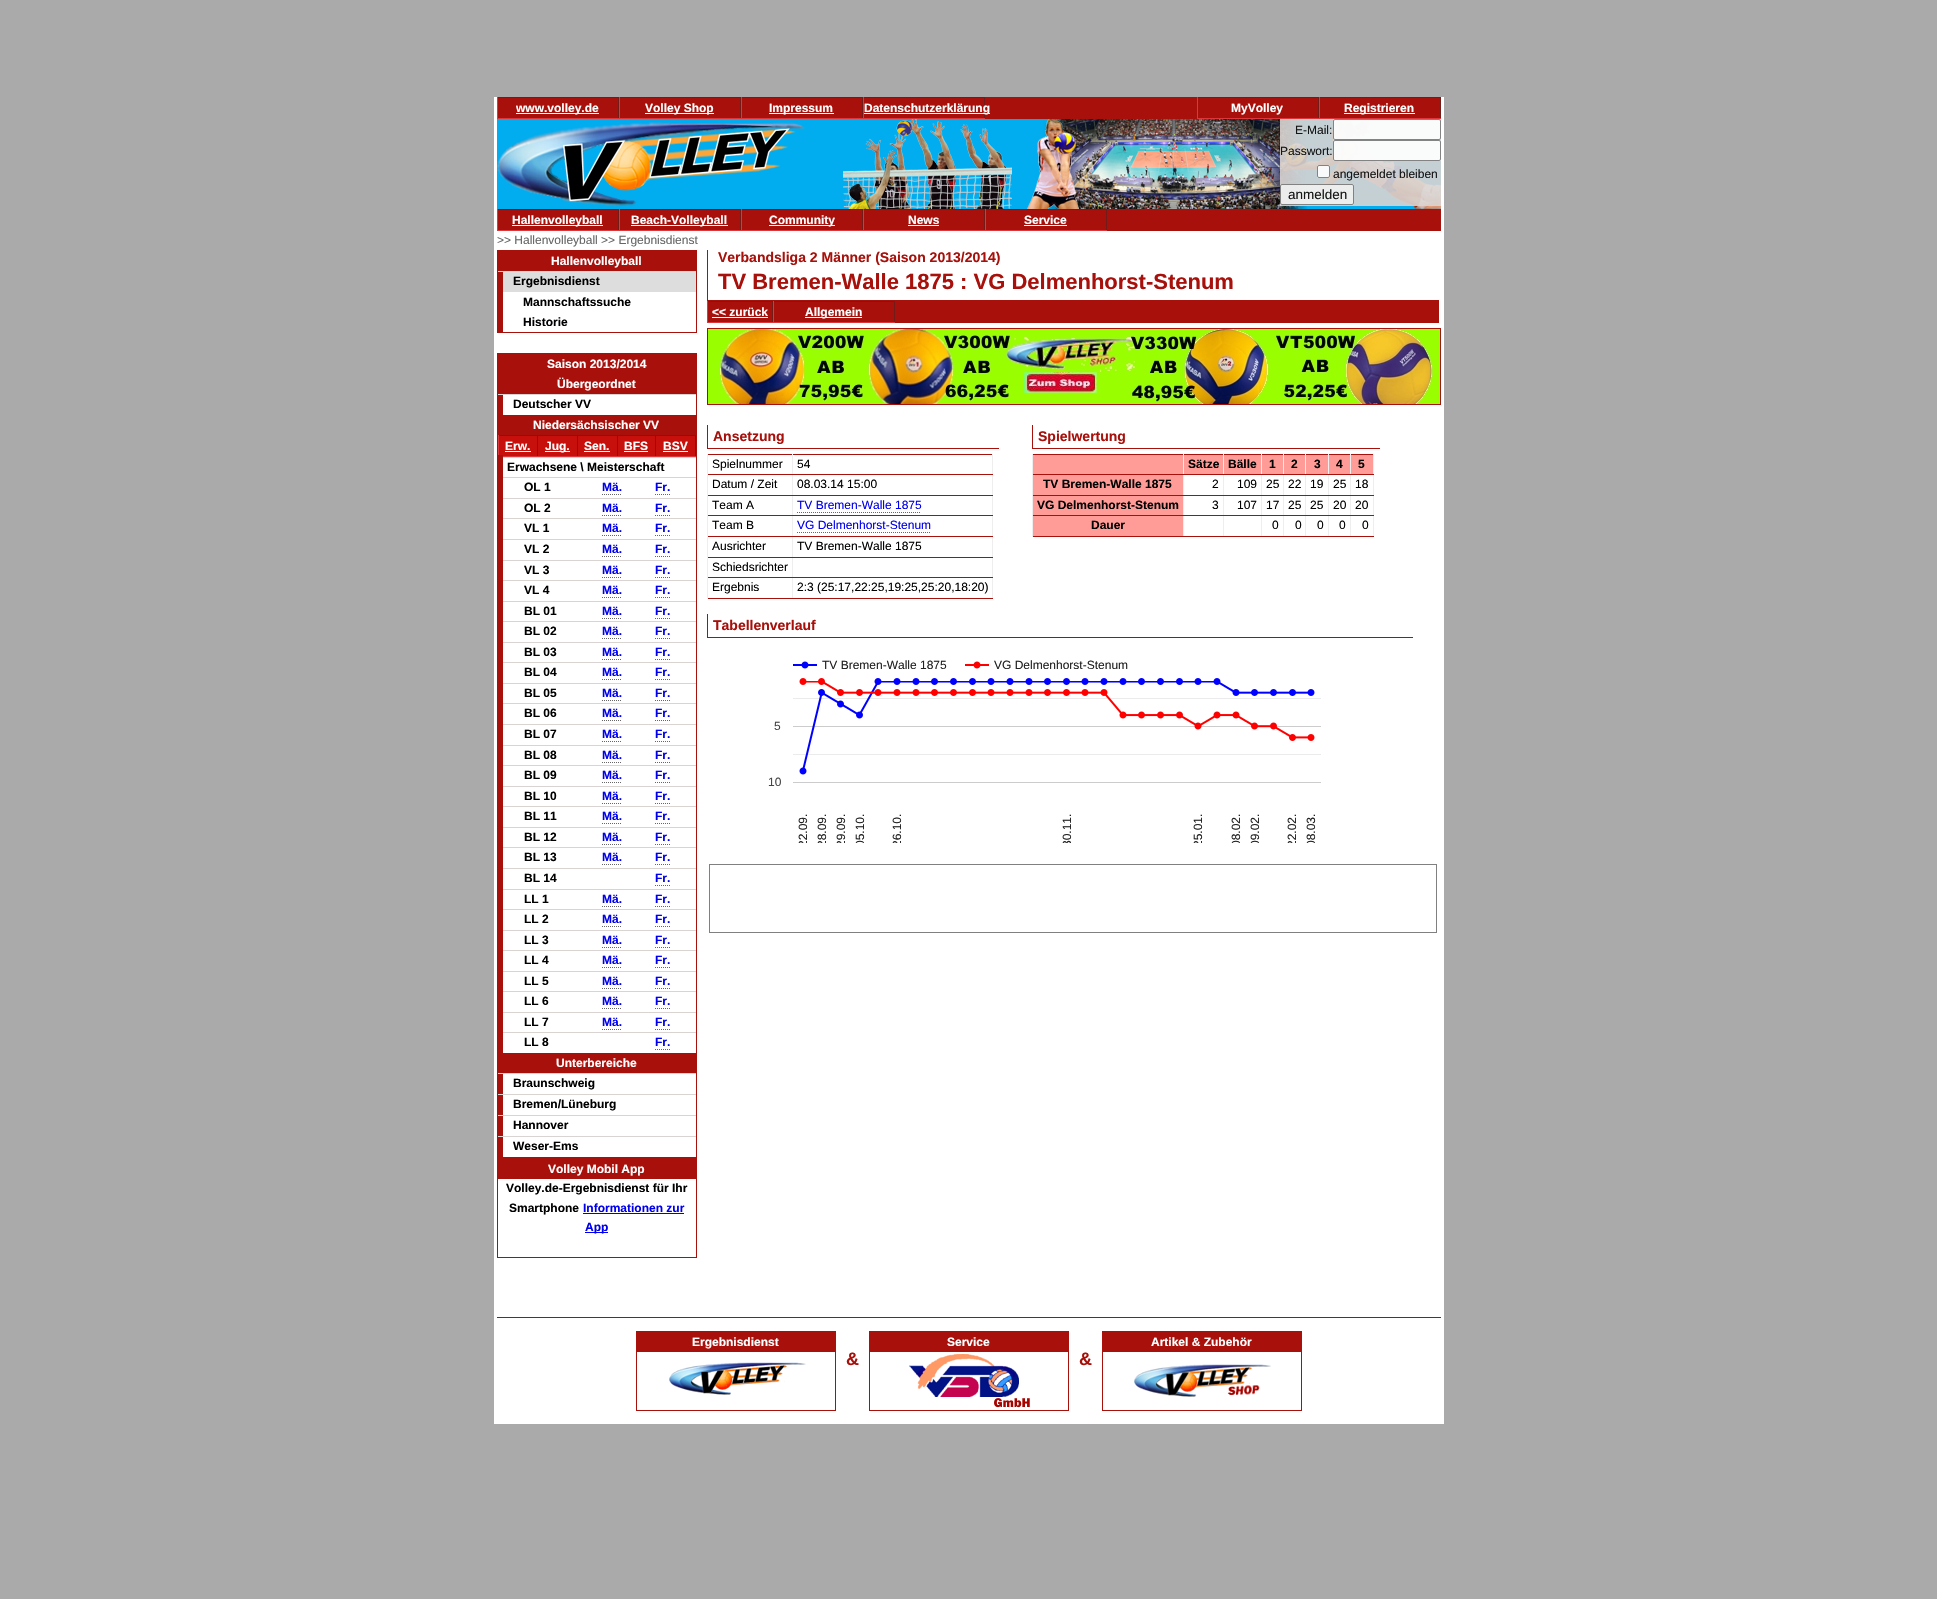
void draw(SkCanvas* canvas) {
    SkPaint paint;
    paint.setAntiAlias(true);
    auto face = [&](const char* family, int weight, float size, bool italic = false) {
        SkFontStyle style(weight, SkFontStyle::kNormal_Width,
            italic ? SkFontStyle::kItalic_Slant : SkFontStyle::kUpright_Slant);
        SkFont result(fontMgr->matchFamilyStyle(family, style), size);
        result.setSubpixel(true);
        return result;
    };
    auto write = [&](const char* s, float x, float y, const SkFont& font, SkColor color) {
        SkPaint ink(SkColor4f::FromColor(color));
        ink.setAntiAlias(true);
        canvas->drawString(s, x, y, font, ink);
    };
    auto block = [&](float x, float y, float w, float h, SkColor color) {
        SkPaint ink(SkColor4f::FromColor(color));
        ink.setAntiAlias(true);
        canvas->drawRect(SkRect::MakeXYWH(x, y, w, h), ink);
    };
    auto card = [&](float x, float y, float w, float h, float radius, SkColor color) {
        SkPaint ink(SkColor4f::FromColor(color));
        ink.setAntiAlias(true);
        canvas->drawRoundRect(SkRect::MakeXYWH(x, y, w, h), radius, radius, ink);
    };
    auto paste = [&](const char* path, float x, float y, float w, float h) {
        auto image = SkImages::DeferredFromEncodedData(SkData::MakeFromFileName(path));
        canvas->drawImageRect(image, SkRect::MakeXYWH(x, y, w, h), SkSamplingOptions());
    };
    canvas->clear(SkColorSetRGB(170, 170, 170));
    block(494, 97, 950, 1327, SK_ColorWHITE);
    block(498, 97, 942, 22, SkColorSetRGB(167, 16, 11));
    block(497, 97, 488, 1, SkColorSetRGB(113, 28, 25));
    block(618, 97, 1, 22, SkColorSetRGB(113, 28, 25));
    block(497, 118, 122, 1, SkColorSetRGB(220, 56, 59));
    block(497, 97, 1, 22, SkColorSetRGB(220, 56, 59));
    block(516, 113, 83, 1, SK_ColorWHITE);
    auto kFont1 = face("Liberation Sans", 700, 12);
    write("www.volley.de", 516, 112, kFont1, SK_ColorWHITE);
    block(740, 97, 1, 22, SkColorSetRGB(113, 28, 25));
    block(619, 118, 122, 1, SkColorSetRGB(220, 56, 59));
    block(619, 97, 1, 22, SkColorSetRGB(220, 56, 59));
    block(645, 113, 69, 1, SK_ColorWHITE);
    write("Volley Shop", 645, 112, kFont1, SK_ColorWHITE);
    block(862, 97, 1, 22, SkColorSetRGB(113, 28, 25));
    block(741, 118, 122, 1, SkColorSetRGB(220, 56, 59));
    block(741, 97, 1, 22, SkColorSetRGB(220, 56, 59));
    block(769, 113, 65, 1, SK_ColorWHITE);
    write("Impressum", 769, 112, kFont1, SK_ColorWHITE);
    block(984, 97, 1, 22, SkColorSetRGB(113, 28, 25));
    block(863, 118, 122, 1, SkColorSetRGB(220, 56, 59));
    block(863, 97, 1, 22, SkColorSetRGB(220, 56, 59));
    block(864, 113, 126, 1, SK_ColorWHITE);
    write("Datenschutzerklärung", 864, 112, kFont1, SK_ColorWHITE);
    block(1197, 97, 244, 1, SkColorSetRGB(113, 28, 25));
    block(1318, 97, 1, 22, SkColorSetRGB(113, 28, 25));
    block(1197, 118, 122, 1, SkColorSetRGB(220, 56, 59));
    block(1197, 97, 1, 22, SkColorSetRGB(220, 56, 59));
    write("MyVolley", 1231, 112, kFont1, SK_ColorWHITE);
    block(1440, 97, 1, 22, SkColorSetRGB(113, 28, 25));
    block(1319, 118, 122, 1, SkColorSetRGB(220, 56, 59));
    block(1319, 97, 1, 22, SkColorSetRGB(220, 56, 59));
    block(1344, 113, 71, 1, SK_ColorWHITE);
    write("Registrieren", 1344, 112, kFont1, SK_ColorWHITE);
    block(497, 119, 944, 90, SkColorSetRGB(1, 173, 239));
    paste("pic1.png", 497, 122, 309, 84);
    paste("pic2.png", 843, 119, 598, 90);
    block(1280, 119, 161, 87, SkColorSetARGB(230, 217, 212, 209));
    auto kFont2 = face("Liberation Sans", 400, 12);
    write("E-Mail:", 1295, 134, kFont2, SkColorSetRGB(20, 21, 21));
    card(1333, 119, 108, 21, 2, SkColorSetARGB(230, 255, 255, 255));
    paint.setStyle(SkPaint::kStroke_Style);
    paint.setStrokeWidth(1);
    paint.setColor(SkColorSetARGB(230, 118, 118, 118));
    canvas->drawRoundRect(SkRect::MakeXYWH(1333.5f, 119.5f, 107, 20), 1.5f, 1.5f, paint);
    write("Passwort:", 1280, 155, kFont2, SkColorSetRGB(20, 21, 21));
    card(1333, 140, 108, 21, 2, SkColorSetARGB(230, 255, 255, 255));
    canvas->drawRoundRect(SkRect::MakeXYWH(1333.5f, 140.5f, 107, 20), 1.5f, 1.5f, paint);
    card(1317, 165, 13, 13, 2, SkColorSetARGB(230, 255, 255, 255));
    canvas->drawRoundRect(SkRect::MakeXYWH(1317.5f, 165.5f, 12, 12), 1.5f, 1.5f, paint);
    write("angemeldet bleiben", 1333, 178, kFont2, SkColorSetRGB(20, 21, 21));
    card(1280, 184, 74, 21, 2, SkColorSetARGB(230, 239, 239, 239));
    canvas->drawRoundRect(SkRect::MakeXYWH(1280.5f, 184.5f, 73, 20), 1.5f, 1.5f, paint);
    auto kFont3 = face("Liberation Sans", 400, 13.5f);
    write("anmelden", 1288, 199, kFont3, SkColorSetRGB(20, 21, 21));
    block(498, 209, 943, 22, SkColorSetRGB(167, 16, 11));
    block(497, 209, 610, 1, SkColorSetRGB(113, 28, 25));
    block(618, 209, 1, 22, SkColorSetRGB(113, 28, 25));
    block(497, 230, 122, 1, SkColorSetRGB(220, 56, 59));
    block(497, 209, 1, 22, SkColorSetRGB(220, 56, 59));
    block(512, 225, 91, 1, SK_ColorWHITE);
    write("Hallenvolleyball", 512, 224, kFont1, SK_ColorWHITE);
    block(740, 209, 1, 22, SkColorSetRGB(113, 28, 25));
    block(619, 230, 122, 1, SkColorSetRGB(220, 56, 59));
    block(619, 209, 1, 22, SkColorSetRGB(220, 56, 59));
    block(631, 225, 97, 1, SK_ColorWHITE);
    write("Beach-Volleyball", 631, 224, kFont1, SK_ColorWHITE);
    block(862, 209, 1, 22, SkColorSetRGB(113, 28, 25));
    block(741, 230, 122, 1, SkColorSetRGB(220, 56, 59));
    block(741, 209, 1, 22, SkColorSetRGB(220, 56, 59));
    block(769, 225, 66, 1, SK_ColorWHITE);
    write("Community", 769, 224, kFont1, SK_ColorWHITE);
    block(984, 209, 1, 22, SkColorSetRGB(113, 28, 25));
    block(863, 230, 122, 1, SkColorSetRGB(220, 56, 59));
    block(863, 209, 1, 22, SkColorSetRGB(220, 56, 59));
    write("News", 908, 224, kFont1, SK_ColorWHITE);
    block(908, 225, 31, 1, SK_ColorWHITE);
    block(1106, 209, 1, 22, SkColorSetRGB(113, 28, 25));
    block(985, 230, 122, 1, SkColorSetRGB(220, 56, 59));
    block(985, 209, 1, 22, SkColorSetRGB(220, 56, 59));
    write("Service", 1024, 224, kFont1, SK_ColorWHITE);
    block(1024, 225, 43, 1, SK_ColorWHITE);
    write(">> Hallenvolleyball >> Ergebnisdienst", 497, 244, kFont2, SkColorSetRGB(102, 102, 102));
    paint.setColor(SkColorSetRGB(167, 16, 11));
    canvas->drawRect(SkRect::MakeXYWH(497.5f, 250.5f, 199, 82), paint);
    block(498, 251, 198, 20, SkColorSetRGB(167, 16, 11));
    write("Hallenvolleyball", 551, 265, kFont1, SK_ColorWHITE);
    block(498, 271, 198, 1, SkColorSetRGB(217, 212, 209));
    block(503, 272, 193, 20, SkColorSetRGB(221, 221, 221));
    block(498, 272, 5, 60, SkColorSetRGB(167, 16, 11));
    write("Ergebnisdienst", 513, 285, kFont1, SK_ColorBLACK);
    write("Mannschaftssuche", 523, 306, kFont1, SK_ColorBLACK);
    write("Historie", 523, 326, kFont1, SK_ColorBLACK);
    canvas->drawRect(SkRect::MakeXYWH(497.5f, 353.5f, 199, 804), paint);
    block(498, 354, 198, 40, SkColorSetRGB(167, 16, 11));
    write("Saison 2013/2014", 547, 368, kFont1, SK_ColorWHITE);
    write("Übergeordnet", 557, 388, kFont1, SK_ColorWHITE);
    block(498, 394, 198, 1, SkColorSetRGB(217, 212, 209));
    block(498, 395, 5, 20, SkColorSetRGB(167, 16, 11));
    write("Deutscher VV", 513, 408, kFont1, SK_ColorBLACK);
    block(498, 415, 198, 20, SkColorSetRGB(167, 16, 11));
    write("Niedersächsischer VV", 533, 429, kFont1, SK_ColorWHITE);
    block(499, 436, 38, 20, SkColorSetRGB(199, 16, 11));
    block(498, 435, 198, 1, SkColorSetRGB(113, 28, 25));
    block(695, 435, 1, 22, SkColorSetRGB(113, 28, 25));
    block(655, 456, 41, 1, SkColorSetRGB(220, 56, 59));
    block(655, 435, 1, 22, SkColorSetRGB(113, 28, 25));
    block(617, 456, 39, 1, SkColorSetRGB(220, 56, 59));
    block(617, 435, 1, 22, SkColorSetRGB(113, 28, 25));
    block(577, 456, 41, 1, SkColorSetRGB(220, 56, 59));
    block(577, 435, 1, 22, SkColorSetRGB(113, 28, 25));
    block(537, 456, 41, 1, SkColorSetRGB(220, 56, 59));
    block(537, 435, 1, 22, SkColorSetRGB(113, 28, 25));
    block(498, 456, 40, 1, SkColorSetRGB(220, 56, 59));
    block(498, 435, 1, 22, SkColorSetRGB(220, 56, 59));
    write("Erw.", 505, 450, kFont1, SK_ColorWHITE);
    block(505, 451, 26, 1, SK_ColorWHITE);
    block(538, 436, 39, 20, SkColorSetRGB(199, 16, 11));
    block(545, 451, 25, 1, SK_ColorWHITE);
    write("Jug.", 545, 450, kFont1, SK_ColorWHITE);
    block(578, 436, 39, 20, SkColorSetRGB(199, 16, 11));
    write("Sen.", 584, 450, kFont1, SK_ColorWHITE);
    block(584, 451, 26, 1, SK_ColorWHITE);
    block(618, 436, 37, 20, SkColorSetRGB(199, 16, 11));
    write("BFS", 624, 450, kFont1, SK_ColorWHITE);
    block(624, 451, 24, 1, SK_ColorWHITE);
    block(656, 436, 39, 20, SkColorSetRGB(199, 16, 11));
    write("BSV", 663, 450, kFont1, SK_ColorWHITE);
    block(663, 451, 25, 1, SK_ColorWHITE);
    block(500, 457, 196, 1, SkColorSetRGB(217, 212, 209));
    write("Erwachsene \\ Meisterschaft", 507, 471, kFont1, SK_ColorBLACK);
    block(500, 477, 196, 1, SkColorSetRGB(217, 212, 209));
    write("OL 1", 524, 491, kFont1, SK_ColorBLACK);
    write("Mä.", 602, 491, kFont1, SkColorSetRGB(0, 0, 238));
    paint.setColor(SkColorSetRGB(102, 102, 102));
    paint.setPathEffect(SkDashPathEffect::Make({{1, 1}}, 0));
    canvas->drawPath(SkPathBuilder().moveTo(602, 494.5f).lineTo(622, 494.5f).detach(), paint);
    paint.setPathEffect(nullptr);
    write("Fr.", 655, 491, kFont1, SkColorSetRGB(0, 0, 238));
    paint.setPathEffect(SkDashPathEffect::Make({{1, 1}}, 0));
    canvas->drawPath(SkPathBuilder().moveTo(655, 494.5f).lineTo(670, 494.5f).detach(), paint);
    paint.setPathEffect(nullptr);
    block(500, 498, 196, 1, SkColorSetRGB(217, 212, 209));
    write("OL 2", 524, 512, kFont1, SK_ColorBLACK);
    write("Mä.", 602, 512, kFont1, SkColorSetRGB(0, 0, 238));
    paint.setPathEffect(SkDashPathEffect::Make({{1, 1}}, 0));
    canvas->drawPath(SkPathBuilder().moveTo(602, 515.5f).lineTo(622, 515.5f).detach(), paint);
    paint.setPathEffect(nullptr);
    write("Fr.", 655, 512, kFont1, SkColorSetRGB(0, 0, 238));
    paint.setPathEffect(SkDashPathEffect::Make({{1, 1}}, 0));
    canvas->drawPath(SkPathBuilder().moveTo(655, 515.5f).lineTo(670, 515.5f).detach(), paint);
    paint.setPathEffect(nullptr);
    block(500, 518, 196, 1, SkColorSetRGB(217, 212, 209));
    write("VL 1", 524, 532, kFont1, SK_ColorBLACK);
    write("Mä.", 602, 532, kFont1, SkColorSetRGB(0, 0, 238));
    paint.setPathEffect(SkDashPathEffect::Make({{1, 1}}, 0));
    canvas->drawPath(SkPathBuilder().moveTo(602, 535.5f).lineTo(622, 535.5f).detach(), paint);
    paint.setPathEffect(nullptr);
    write("Fr.", 655, 532, kFont1, SkColorSetRGB(0, 0, 238));
    paint.setPathEffect(SkDashPathEffect::Make({{1, 1}}, 0));
    canvas->drawPath(SkPathBuilder().moveTo(655, 535.5f).lineTo(670, 535.5f).detach(), paint);
    paint.setPathEffect(nullptr);
    block(500, 539, 196, 1, SkColorSetRGB(217, 212, 209));
    write("VL 2", 524, 553, kFont1, SK_ColorBLACK);
    write("Mä.", 602, 553, kFont1, SkColorSetRGB(0, 0, 238));
    paint.setPathEffect(SkDashPathEffect::Make({{1, 1}}, 0));
    canvas->drawPath(SkPathBuilder().moveTo(602, 556.5f).lineTo(622, 556.5f).detach(), paint);
    paint.setPathEffect(nullptr);
    write("Fr.", 655, 553, kFont1, SkColorSetRGB(0, 0, 238));
    paint.setPathEffect(SkDashPathEffect::Make({{1, 1}}, 0));
    canvas->drawPath(SkPathBuilder().moveTo(655, 556.5f).lineTo(670, 556.5f).detach(), paint);
    paint.setPathEffect(nullptr);
    block(500, 560, 196, 1, SkColorSetRGB(217, 212, 209));
    write("VL 3", 524, 574, kFont1, SK_ColorBLACK);
    write("Mä.", 602, 574, kFont1, SkColorSetRGB(0, 0, 238));
    paint.setPathEffect(SkDashPathEffect::Make({{1, 1}}, 0));
    canvas->drawPath(SkPathBuilder().moveTo(602, 577.5f).lineTo(622, 577.5f).detach(), paint);
    paint.setPathEffect(nullptr);
    write("Fr.", 655, 574, kFont1, SkColorSetRGB(0, 0, 238));
    paint.setPathEffect(SkDashPathEffect::Make({{1, 1}}, 0));
    canvas->drawPath(SkPathBuilder().moveTo(655, 577.5f).lineTo(670, 577.5f).detach(), paint);
    paint.setPathEffect(nullptr);
    block(500, 580, 196, 1, SkColorSetRGB(217, 212, 209));
    write("VL 4", 524, 594, kFont1, SK_ColorBLACK);
    write("Mä.", 602, 594, kFont1, SkColorSetRGB(0, 0, 238));
    paint.setPathEffect(SkDashPathEffect::Make({{1, 1}}, 0));
    canvas->drawPath(SkPathBuilder().moveTo(602, 597.5f).lineTo(622, 597.5f).detach(), paint);
    paint.setPathEffect(nullptr);
    write("Fr.", 655, 594, kFont1, SkColorSetRGB(0, 0, 238));
    paint.setPathEffect(SkDashPathEffect::Make({{1, 1}}, 0));
    canvas->drawPath(SkPathBuilder().moveTo(655, 597.5f).lineTo(670, 597.5f).detach(), paint);
    paint.setPathEffect(nullptr);
    block(500, 601, 196, 1, SkColorSetRGB(217, 212, 209));
    write("BL 01", 524, 615, kFont1, SK_ColorBLACK);
    write("Mä.", 602, 615, kFont1, SkColorSetRGB(0, 0, 238));
    paint.setPathEffect(SkDashPathEffect::Make({{1, 1}}, 0));
    canvas->drawPath(SkPathBuilder().moveTo(602, 618.5f).lineTo(622, 618.5f).detach(), paint);
    paint.setPathEffect(nullptr);
    write("Fr.", 655, 615, kFont1, SkColorSetRGB(0, 0, 238));
    paint.setPathEffect(SkDashPathEffect::Make({{1, 1}}, 0));
    canvas->drawPath(SkPathBuilder().moveTo(655, 618.5f).lineTo(670, 618.5f).detach(), paint);
    paint.setPathEffect(nullptr);
    block(500, 621, 196, 1, SkColorSetRGB(217, 212, 209));
    write("BL 02", 524, 635, kFont1, SK_ColorBLACK);
    write("Mä.", 602, 635, kFont1, SkColorSetRGB(0, 0, 238));
    paint.setPathEffect(SkDashPathEffect::Make({{1, 1}}, 0));
    canvas->drawPath(SkPathBuilder().moveTo(602, 638.5f).lineTo(622, 638.5f).detach(), paint);
    paint.setPathEffect(nullptr);
    write("Fr.", 655, 635, kFont1, SkColorSetRGB(0, 0, 238));
    paint.setPathEffect(SkDashPathEffect::Make({{1, 1}}, 0));
    canvas->drawPath(SkPathBuilder().moveTo(655, 638.5f).lineTo(670, 638.5f).detach(), paint);
    paint.setPathEffect(nullptr);
    block(500, 642, 196, 1, SkColorSetRGB(217, 212, 209));
    write("BL 03", 524, 656, kFont1, SK_ColorBLACK);
    write("Mä.", 602, 656, kFont1, SkColorSetRGB(0, 0, 238));
    paint.setPathEffect(SkDashPathEffect::Make({{1, 1}}, 0));
    canvas->drawPath(SkPathBuilder().moveTo(602, 659.5f).lineTo(622, 659.5f).detach(), paint);
    paint.setPathEffect(nullptr);
    write("Fr.", 655, 656, kFont1, SkColorSetRGB(0, 0, 238));
    paint.setPathEffect(SkDashPathEffect::Make({{1, 1}}, 0));
    canvas->drawPath(SkPathBuilder().moveTo(655, 659.5f).lineTo(670, 659.5f).detach(), paint);
    paint.setPathEffect(nullptr);
    block(500, 662, 196, 1, SkColorSetRGB(217, 212, 209));
    write("BL 04", 524, 676, kFont1, SK_ColorBLACK);
    write("Mä.", 602, 676, kFont1, SkColorSetRGB(0, 0, 238));
    paint.setPathEffect(SkDashPathEffect::Make({{1, 1}}, 0));
    canvas->drawPath(SkPathBuilder().moveTo(602, 679.5f).lineTo(622, 679.5f).detach(), paint);
    paint.setPathEffect(nullptr);
    write("Fr.", 655, 676, kFont1, SkColorSetRGB(0, 0, 238));
    paint.setPathEffect(SkDashPathEffect::Make({{1, 1}}, 0));
    canvas->drawPath(SkPathBuilder().moveTo(655, 679.5f).lineTo(670, 679.5f).detach(), paint);
    paint.setPathEffect(nullptr);
    block(500, 683, 196, 1, SkColorSetRGB(217, 212, 209));
    write("BL 05", 524, 697, kFont1, SK_ColorBLACK);
    write("Mä.", 602, 697, kFont1, SkColorSetRGB(0, 0, 238));
    paint.setPathEffect(SkDashPathEffect::Make({{1, 1}}, 0));
    canvas->drawPath(SkPathBuilder().moveTo(602, 700.5f).lineTo(622, 700.5f).detach(), paint);
    paint.setPathEffect(nullptr);
    write("Fr.", 655, 697, kFont1, SkColorSetRGB(0, 0, 238));
    paint.setPathEffect(SkDashPathEffect::Make({{1, 1}}, 0));
    canvas->drawPath(SkPathBuilder().moveTo(655, 700.5f).lineTo(670, 700.5f).detach(), paint);
    paint.setPathEffect(nullptr);
    block(500, 703, 196, 1, SkColorSetRGB(217, 212, 209));
    write("BL 06", 524, 717, kFont1, SK_ColorBLACK);
    write("Mä.", 602, 717, kFont1, SkColorSetRGB(0, 0, 238));
    paint.setPathEffect(SkDashPathEffect::Make({{1, 1}}, 0));
    canvas->drawPath(SkPathBuilder().moveTo(602, 720.5f).lineTo(622, 720.5f).detach(), paint);
    paint.setPathEffect(nullptr);
    write("Fr.", 655, 717, kFont1, SkColorSetRGB(0, 0, 238));
    paint.setPathEffect(SkDashPathEffect::Make({{1, 1}}, 0));
    canvas->drawPath(SkPathBuilder().moveTo(655, 720.5f).lineTo(670, 720.5f).detach(), paint);
    paint.setPathEffect(nullptr);
    block(500, 724, 196, 1, SkColorSetRGB(217, 212, 209));
    write("BL 07", 524, 738, kFont1, SK_ColorBLACK);
    write("Mä.", 602, 738, kFont1, SkColorSetRGB(0, 0, 238));
    paint.setPathEffect(SkDashPathEffect::Make({{1, 1}}, 0));
    canvas->drawPath(SkPathBuilder().moveTo(602, 741.5f).lineTo(622, 741.5f).detach(), paint);
    paint.setPathEffect(nullptr);
    write("Fr.", 655, 738, kFont1, SkColorSetRGB(0, 0, 238));
    paint.setPathEffect(SkDashPathEffect::Make({{1, 1}}, 0));
    canvas->drawPath(SkPathBuilder().moveTo(655, 741.5f).lineTo(670, 741.5f).detach(), paint);
    paint.setPathEffect(nullptr);
    block(500, 745, 196, 1, SkColorSetRGB(217, 212, 209));
    write("BL 08", 524, 759, kFont1, SK_ColorBLACK);
    write("Mä.", 602, 759, kFont1, SkColorSetRGB(0, 0, 238));
    paint.setPathEffect(SkDashPathEffect::Make({{1, 1}}, 0));
    canvas->drawPath(SkPathBuilder().moveTo(602, 762.5f).lineTo(622, 762.5f).detach(), paint);
    paint.setPathEffect(nullptr);
    write("Fr.", 655, 759, kFont1, SkColorSetRGB(0, 0, 238));
    paint.setPathEffect(SkDashPathEffect::Make({{1, 1}}, 0));
    canvas->drawPath(SkPathBuilder().moveTo(655, 762.5f).lineTo(670, 762.5f).detach(), paint);
    paint.setPathEffect(nullptr);
    block(500, 765, 196, 1, SkColorSetRGB(217, 212, 209));
    write("BL 09", 524, 779, kFont1, SK_ColorBLACK);
    write("Mä.", 602, 779, kFont1, SkColorSetRGB(0, 0, 238));
    paint.setPathEffect(SkDashPathEffect::Make({{1, 1}}, 0));
    canvas->drawPath(SkPathBuilder().moveTo(602, 782.5f).lineTo(622, 782.5f).detach(), paint);
    paint.setPathEffect(nullptr);
    write("Fr.", 655, 779, kFont1, SkColorSetRGB(0, 0, 238));
    paint.setPathEffect(SkDashPathEffect::Make({{1, 1}}, 0));
    canvas->drawPath(SkPathBuilder().moveTo(655, 782.5f).lineTo(670, 782.5f).detach(), paint);
    paint.setPathEffect(nullptr);
    block(500, 786, 196, 1, SkColorSetRGB(217, 212, 209));
    write("BL 10", 524, 800, kFont1, SK_ColorBLACK);
    write("Mä.", 602, 800, kFont1, SkColorSetRGB(0, 0, 238));
    paint.setPathEffect(SkDashPathEffect::Make({{1, 1}}, 0));
    canvas->drawPath(SkPathBuilder().moveTo(602, 803.5f).lineTo(622, 803.5f).detach(), paint);
    paint.setPathEffect(nullptr);
    write("Fr.", 655, 800, kFont1, SkColorSetRGB(0, 0, 238));
    paint.setPathEffect(SkDashPathEffect::Make({{1, 1}}, 0));
    canvas->drawPath(SkPathBuilder().moveTo(655, 803.5f).lineTo(670, 803.5f).detach(), paint);
    paint.setPathEffect(nullptr);
    block(500, 806, 196, 1, SkColorSetRGB(217, 212, 209));
    write("BL 11", 524, 820, kFont1, SK_ColorBLACK);
    write("Mä.", 602, 820, kFont1, SkColorSetRGB(0, 0, 238));
    paint.setPathEffect(SkDashPathEffect::Make({{1, 1}}, 0));
    canvas->drawPath(SkPathBuilder().moveTo(602, 823.5f).lineTo(622, 823.5f).detach(), paint);
    paint.setPathEffect(nullptr);
    write("Fr.", 655, 820, kFont1, SkColorSetRGB(0, 0, 238));
    paint.setPathEffect(SkDashPathEffect::Make({{1, 1}}, 0));
    canvas->drawPath(SkPathBuilder().moveTo(655, 823.5f).lineTo(670, 823.5f).detach(), paint);
    paint.setPathEffect(nullptr);
    block(500, 827, 196, 1, SkColorSetRGB(217, 212, 209));
    write("BL 12", 524, 841, kFont1, SK_ColorBLACK);
    write("Mä.", 602, 841, kFont1, SkColorSetRGB(0, 0, 238));
    paint.setPathEffect(SkDashPathEffect::Make({{1, 1}}, 0));
    canvas->drawPath(SkPathBuilder().moveTo(602, 844.5f).lineTo(622, 844.5f).detach(), paint);
    paint.setPathEffect(nullptr);
    write("Fr.", 655, 841, kFont1, SkColorSetRGB(0, 0, 238));
    paint.setPathEffect(SkDashPathEffect::Make({{1, 1}}, 0));
    canvas->drawPath(SkPathBuilder().moveTo(655, 844.5f).lineTo(670, 844.5f).detach(), paint);
    paint.setPathEffect(nullptr);
    block(500, 847, 196, 1, SkColorSetRGB(217, 212, 209));
    write("BL 13", 524, 861, kFont1, SK_ColorBLACK);
    write("Mä.", 602, 861, kFont1, SkColorSetRGB(0, 0, 238));
    paint.setPathEffect(SkDashPathEffect::Make({{1, 1}}, 0));
    canvas->drawPath(SkPathBuilder().moveTo(602, 864.5f).lineTo(622, 864.5f).detach(), paint);
    paint.setPathEffect(nullptr);
    write("Fr.", 655, 861, kFont1, SkColorSetRGB(0, 0, 238));
    paint.setPathEffect(SkDashPathEffect::Make({{1, 1}}, 0));
    canvas->drawPath(SkPathBuilder().moveTo(655, 864.5f).lineTo(670, 864.5f).detach(), paint);
    paint.setPathEffect(nullptr);
    block(500, 868, 196, 1, SkColorSetRGB(217, 212, 209));
    write("BL 14", 524, 882, kFont1, SK_ColorBLACK);
    write("Fr.", 655, 882, kFont1, SkColorSetRGB(0, 0, 238));
    paint.setPathEffect(SkDashPathEffect::Make({{1, 1}}, 0));
    canvas->drawPath(SkPathBuilder().moveTo(655, 885.5f).lineTo(670, 885.5f).detach(), paint);
    paint.setPathEffect(nullptr);
    block(500, 889, 196, 1, SkColorSetRGB(217, 212, 209));
    write("LL 1", 524, 903, kFont1, SK_ColorBLACK);
    write("Mä.", 602, 903, kFont1, SkColorSetRGB(0, 0, 238));
    paint.setPathEffect(SkDashPathEffect::Make({{1, 1}}, 0));
    canvas->drawPath(SkPathBuilder().moveTo(602, 906.5f).lineTo(622, 906.5f).detach(), paint);
    paint.setPathEffect(nullptr);
    write("Fr.", 655, 903, kFont1, SkColorSetRGB(0, 0, 238));
    paint.setPathEffect(SkDashPathEffect::Make({{1, 1}}, 0));
    canvas->drawPath(SkPathBuilder().moveTo(655, 906.5f).lineTo(670, 906.5f).detach(), paint);
    paint.setPathEffect(nullptr);
    block(500, 909, 196, 1, SkColorSetRGB(217, 212, 209));
    write("LL 2", 524, 923, kFont1, SK_ColorBLACK);
    write("Mä.", 602, 923, kFont1, SkColorSetRGB(0, 0, 238));
    paint.setPathEffect(SkDashPathEffect::Make({{1, 1}}, 0));
    canvas->drawPath(SkPathBuilder().moveTo(602, 926.5f).lineTo(622, 926.5f).detach(), paint);
    paint.setPathEffect(nullptr);
    write("Fr.", 655, 923, kFont1, SkColorSetRGB(0, 0, 238));
    paint.setPathEffect(SkDashPathEffect::Make({{1, 1}}, 0));
    canvas->drawPath(SkPathBuilder().moveTo(655, 926.5f).lineTo(670, 926.5f).detach(), paint);
    paint.setPathEffect(nullptr);
    block(500, 930, 196, 1, SkColorSetRGB(217, 212, 209));
    write("LL 3", 524, 944, kFont1, SK_ColorBLACK);
    write("Mä.", 602, 944, kFont1, SkColorSetRGB(0, 0, 238));
    paint.setPathEffect(SkDashPathEffect::Make({{1, 1}}, 0));
    canvas->drawPath(SkPathBuilder().moveTo(602, 947.5f).lineTo(622, 947.5f).detach(), paint);
    paint.setPathEffect(nullptr);
    write("Fr.", 655, 944, kFont1, SkColorSetRGB(0, 0, 238));
    paint.setPathEffect(SkDashPathEffect::Make({{1, 1}}, 0));
    canvas->drawPath(SkPathBuilder().moveTo(655, 947.5f).lineTo(670, 947.5f).detach(), paint);
    paint.setPathEffect(nullptr);
    block(500, 950, 196, 1, SkColorSetRGB(217, 212, 209));
    write("LL 4", 524, 964, kFont1, SK_ColorBLACK);
    write("Mä.", 602, 964, kFont1, SkColorSetRGB(0, 0, 238));
    paint.setPathEffect(SkDashPathEffect::Make({{1, 1}}, 0));
    canvas->drawPath(SkPathBuilder().moveTo(602, 967.5f).lineTo(622, 967.5f).detach(), paint);
    paint.setPathEffect(nullptr);
    write("Fr.", 655, 964, kFont1, SkColorSetRGB(0, 0, 238));
    paint.setPathEffect(SkDashPathEffect::Make({{1, 1}}, 0));
    canvas->drawPath(SkPathBuilder().moveTo(655, 967.5f).lineTo(670, 967.5f).detach(), paint);
    paint.setPathEffect(nullptr);
    block(500, 971, 196, 1, SkColorSetRGB(217, 212, 209));
    write("LL 5", 524, 985, kFont1, SK_ColorBLACK);
    write("Mä.", 602, 985, kFont1, SkColorSetRGB(0, 0, 238));
    paint.setPathEffect(SkDashPathEffect::Make({{1, 1}}, 0));
    canvas->drawPath(SkPathBuilder().moveTo(602, 988.5f).lineTo(622, 988.5f).detach(), paint);
    paint.setPathEffect(nullptr);
    write("Fr.", 655, 985, kFont1, SkColorSetRGB(0, 0, 238));
    paint.setPathEffect(SkDashPathEffect::Make({{1, 1}}, 0));
    canvas->drawPath(SkPathBuilder().moveTo(655, 988.5f).lineTo(670, 988.5f).detach(), paint);
    paint.setPathEffect(nullptr);
    block(500, 991, 196, 1, SkColorSetRGB(217, 212, 209));
    write("LL 6", 524, 1005, kFont1, SK_ColorBLACK);
    write("Mä.", 602, 1005, kFont1, SkColorSetRGB(0, 0, 238));
    paint.setPathEffect(SkDashPathEffect::Make({{1, 1}}, 0));
    canvas->drawPath(SkPathBuilder().moveTo(602, 1008.5f).lineTo(622, 1008.5f).detach(), paint);
    paint.setPathEffect(nullptr);
    write("Fr.", 655, 1005, kFont1, SkColorSetRGB(0, 0, 238));
    paint.setPathEffect(SkDashPathEffect::Make({{1, 1}}, 0));
    canvas->drawPath(SkPathBuilder().moveTo(655, 1008.5f).lineTo(670, 1008.5f).detach(), paint);
    paint.setPathEffect(nullptr);
    block(500, 1012, 196, 1, SkColorSetRGB(217, 212, 209));
    write("LL 7", 524, 1026, kFont1, SK_ColorBLACK);
    write("Mä.", 602, 1026, kFont1, SkColorSetRGB(0, 0, 238));
    paint.setPathEffect(SkDashPathEffect::Make({{1, 1}}, 0));
    canvas->drawPath(SkPathBuilder().moveTo(602, 1029.5f).lineTo(622, 1029.5f).detach(), paint);
    paint.setPathEffect(nullptr);
    write("Fr.", 655, 1026, kFont1, SkColorSetRGB(0, 0, 238));
    paint.setPathEffect(SkDashPathEffect::Make({{1, 1}}, 0));
    canvas->drawPath(SkPathBuilder().moveTo(655, 1029.5f).lineTo(670, 1029.5f).detach(), paint);
    paint.setPathEffect(nullptr);
    block(500, 1032, 196, 1, SkColorSetRGB(217, 212, 209));
    block(498, 455, 5, 601, SkColorSetRGB(167, 16, 11));
    write("LL 8", 524, 1046, kFont1, SK_ColorBLACK);
    write("Fr.", 655, 1046, kFont1, SkColorSetRGB(0, 0, 238));
    paint.setPathEffect(SkDashPathEffect::Make({{1, 1}}, 0));
    canvas->drawPath(SkPathBuilder().moveTo(655, 1049.5f).lineTo(670, 1049.5f).detach(), paint);
    paint.setPathEffect(nullptr);
    block(498, 1053, 198, 20, SkColorSetRGB(167, 16, 11));
    write("Unterbereiche", 556, 1067, kFont1, SK_ColorWHITE);
    block(498, 1073, 198, 1, SkColorSetRGB(217, 212, 209));
    block(498, 1074, 5, 20, SkColorSetRGB(167, 16, 11));
    write("Braunschweig", 513, 1087, kFont1, SK_ColorBLACK);
    block(498, 1094, 198, 1, SkColorSetRGB(217, 212, 209));
    block(498, 1095, 5, 20, SkColorSetRGB(167, 16, 11));
    write("Bremen/Lüneburg", 513, 1108, kFont1, SK_ColorBLACK);
    block(498, 1115, 198, 1, SkColorSetRGB(217, 212, 209));
    block(498, 1116, 5, 20, SkColorSetRGB(167, 16, 11));
    write("Hannover", 513, 1129, kFont1, SK_ColorBLACK);
    block(498, 1136, 198, 1, SkColorSetRGB(217, 212, 209));
    block(498, 1137, 5, 20, SkColorSetRGB(167, 16, 11));
    write("Weser-Ems", 513, 1150, kFont1, SK_ColorBLACK);
    paint.setColor(SkColorSetRGB(167, 16, 11));
    canvas->drawRect(SkRect::MakeXYWH(497.5f, 1158.5f, 199, 99), paint);
    block(498, 1159, 198, 20, SkColorSetRGB(167, 16, 11));
    write("Volley Mobil App", 548, 1173, kFont1, SK_ColorWHITE);
    write("Volley.de-Ergebnisdienst für Ihr", 506, 1192, kFont1, SK_ColorBLACK);
    write("Smartphone", 509, 1212, kFont1, SK_ColorBLACK);
    write("Informationen zur", 583, 1212, kFont1, SkColorSetRGB(0, 0, 238));
    block(583, 1213, 101, 1, SkColorSetRGB(0, 0, 238));
    block(585, 1232, 23, 1, SkColorSetRGB(0, 0, 238));
    write("App", 585, 1231, kFont1, SkColorSetRGB(0, 0, 238));
    block(707, 300, 732, 1, SkColorSetRGB(167, 16, 11));
    block(707, 250, 1, 51, SkColorSetRGB(167, 16, 11));
    auto kFont4 = face("Liberation Sans", 700, 14);
    write("Verbandsliga 2 Männer (Saison 2013/2014)", 718, 262, kFont4, SkColorSetRGB(167, 16, 11));
    auto kFont5 = face("Liberation Sans", 700, 22);
    write("TV Bremen-Walle 1875 : VG Delmenhorst-Stenum", 718, 289, kFont5, SkColorSetRGB(167, 16, 11));
    block(708, 301, 731, 22, SkColorSetRGB(167, 16, 11));
    block(707, 301, 188, 1, SkColorSetRGB(113, 28, 25));
    block(772, 301, 1, 22, SkColorSetRGB(113, 28, 25));
    block(707, 322, 66, 1, SkColorSetRGB(220, 56, 59));
    block(707, 301, 1, 22, SkColorSetRGB(220, 56, 59));
    write("<< zurück", 712, 316, kFont1, SK_ColorWHITE);
    block(712, 317, 56, 1, SK_ColorWHITE);
    block(894, 301, 1, 22, SkColorSetRGB(113, 28, 25));
    block(773, 322, 122, 1, SkColorSetRGB(220, 56, 59));
    block(773, 301, 1, 22, SkColorSetRGB(220, 56, 59));
    block(805, 317, 57, 1, SK_ColorWHITE);
    write("Allgemein", 805, 316, kFont1, SK_ColorWHITE);
    canvas->drawRect(SkRect::MakeXYWH(707.5f, 328.5f, 733, 76), paint);
    paste("pic3.png", 708, 329, 732, 75);
    block(707, 448, 292, 1, SkColorSetRGB(167, 16, 11));
    block(707, 425, 1, 24, SkColorSetRGB(167, 16, 11));
    write("Ansetzung", 713, 441, kFont4, SkColorSetRGB(167, 16, 11));
    block(707, 454, 286, 1, SkColorSetRGB(167, 16, 11));
    block(992, 474, 1, 125, SkColorSetRGB(238, 238, 238));
    block(992, 454, 1, 21, SkColorSetRGB(238, 238, 238));
    block(792, 598, 201, 1, SkColorSetRGB(167, 16, 11));
    block(792, 577, 1, 22, SkColorSetRGB(238, 238, 238));
    block(792, 577, 201, 1, SkColorSetRGB(167, 16, 11));
    block(792, 557, 1, 21, SkColorSetRGB(238, 238, 238));
    block(792, 557, 201, 1, SkColorSetRGB(167, 16, 11));
    block(792, 536, 1, 22, SkColorSetRGB(238, 238, 238));
    block(792, 536, 201, 1, SkColorSetRGB(167, 16, 11));
    block(792, 515, 1, 22, SkColorSetRGB(238, 238, 238));
    block(792, 515, 201, 1, SkColorSetRGB(167, 16, 11));
    block(792, 495, 1, 21, SkColorSetRGB(238, 238, 238));
    block(792, 495, 201, 1, SkColorSetRGB(167, 16, 11));
    block(792, 474, 1, 22, SkColorSetRGB(238, 238, 238));
    block(792, 474, 201, 1, SkColorSetRGB(167, 16, 11));
    block(792, 454, 1, 21, SkColorSetRGB(238, 238, 238));
    block(707, 598, 86, 1, SkColorSetRGB(167, 16, 11));
    block(707, 577, 1, 22, SkColorSetRGB(238, 238, 238));
    block(707, 577, 86, 1, SkColorSetRGB(167, 16, 11));
    block(707, 557, 1, 21, SkColorSetRGB(238, 238, 238));
    block(707, 557, 86, 1, SkColorSetRGB(167, 16, 11));
    block(707, 536, 1, 22, SkColorSetRGB(238, 238, 238));
    block(707, 536, 86, 1, SkColorSetRGB(167, 16, 11));
    block(707, 515, 1, 22, SkColorSetRGB(238, 238, 238));
    block(707, 515, 86, 1, SkColorSetRGB(167, 16, 11));
    block(707, 495, 1, 21, SkColorSetRGB(238, 238, 238));
    block(707, 495, 86, 1, SkColorSetRGB(167, 16, 11));
    block(707, 474, 1, 22, SkColorSetRGB(238, 238, 238));
    block(707, 474, 86, 1, SkColorSetRGB(167, 16, 11));
    block(707, 454, 1, 21, SkColorSetRGB(238, 238, 238));
    write("Spielnummer", 712, 468, kFont2, SK_ColorBLACK);
    write("54", 797, 468, kFont2, SK_ColorBLACK);
    write("Datum / Zeit", 712, 488, kFont2, SK_ColorBLACK);
    write("08.03.14 15:00", 797, 488, kFont2, SK_ColorBLACK);
    write("Team A", 712, 509, kFont2, SK_ColorBLACK);
    write("TV Bremen-Walle 1875", 797, 509, kFont2, SkColorSetRGB(0, 0, 238));
    paint.setColor(SkColorSetRGB(102, 102, 102));
    paint.setPathEffect(SkDashPathEffect::Make({{1, 1}}, 0));
    canvas->drawPath(SkPathBuilder().moveTo(797, 512.5f).lineTo(921, 512.5f).detach(), paint);
    paint.setPathEffect(nullptr);
    write("Team B", 712, 529, kFont2, SK_ColorBLACK);
    write("VG Delmenhorst-Stenum", 797, 529, kFont2, SkColorSetRGB(0, 0, 238));
    paint.setPathEffect(SkDashPathEffect::Make({{1, 1}}, 0));
    canvas->drawPath(SkPathBuilder().moveTo(797, 532.5f).lineTo(931, 532.5f).detach(), paint);
    paint.setPathEffect(nullptr);
    write("Ausrichter", 712, 550, kFont2, SK_ColorBLACK);
    write("TV Bremen-Walle 1875", 797, 550, kFont2, SK_ColorBLACK);
    write("Schiedsrichter", 712, 571, kFont2, SK_ColorBLACK);
    write("Ergebnis", 712, 591, kFont2, SK_ColorBLACK);
    write("2:3 (25:17,22:25,19:25,25:20,18:20)", 797, 591, kFont2, SK_ColorBLACK);
    block(1032, 448, 348, 1, SkColorSetRGB(167, 16, 11));
    block(1032, 425, 1, 24, SkColorSetRGB(167, 16, 11));
    write("Spielwertung", 1038, 441, kFont4, SkColorSetRGB(167, 16, 11));
    block(1033, 455, 150, 19, SkColorSetRGB(255, 156, 151));
    block(1032, 454, 342, 1, SkColorSetRGB(167, 16, 11));
    block(1373, 474, 1, 63, SkColorSetRGB(238, 238, 238));
    block(1373, 454, 1, 21, SkColorSetRGB(238, 238, 238));
    block(1350, 536, 24, 1, SkColorSetRGB(167, 16, 11));
    block(1350, 515, 1, 22, SkColorSetRGB(238, 238, 238));
    block(1350, 515, 24, 1, SkColorSetRGB(167, 16, 11));
    block(1350, 495, 1, 21, SkColorSetRGB(238, 238, 238));
    block(1350, 495, 24, 1, SkColorSetRGB(167, 16, 11));
    block(1350, 474, 1, 22, SkColorSetRGB(238, 238, 238));
    block(1350, 474, 24, 1, SkColorSetRGB(167, 16, 11));
    block(1350, 454, 1, 21, SkColorSetRGB(238, 238, 238));
    block(1328, 536, 23, 1, SkColorSetRGB(167, 16, 11));
    block(1328, 515, 1, 22, SkColorSetRGB(238, 238, 238));
    block(1328, 515, 23, 1, SkColorSetRGB(167, 16, 11));
    block(1328, 495, 1, 21, SkColorSetRGB(238, 238, 238));
    block(1328, 495, 23, 1, SkColorSetRGB(167, 16, 11));
    block(1328, 474, 1, 22, SkColorSetRGB(238, 238, 238));
    block(1328, 474, 23, 1, SkColorSetRGB(167, 16, 11));
    block(1328, 454, 1, 21, SkColorSetRGB(238, 238, 238));
    block(1305, 536, 24, 1, SkColorSetRGB(167, 16, 11));
    block(1305, 515, 1, 22, SkColorSetRGB(238, 238, 238));
    block(1305, 515, 24, 1, SkColorSetRGB(167, 16, 11));
    block(1305, 495, 1, 21, SkColorSetRGB(238, 238, 238));
    block(1305, 495, 24, 1, SkColorSetRGB(167, 16, 11));
    block(1305, 474, 1, 22, SkColorSetRGB(238, 238, 238));
    block(1305, 474, 24, 1, SkColorSetRGB(167, 16, 11));
    block(1305, 454, 1, 21, SkColorSetRGB(238, 238, 238));
    block(1283, 536, 23, 1, SkColorSetRGB(167, 16, 11));
    block(1283, 515, 1, 22, SkColorSetRGB(238, 238, 238));
    block(1283, 515, 23, 1, SkColorSetRGB(167, 16, 11));
    block(1283, 495, 1, 21, SkColorSetRGB(238, 238, 238));
    block(1283, 495, 23, 1, SkColorSetRGB(167, 16, 11));
    block(1283, 474, 1, 22, SkColorSetRGB(238, 238, 238));
    block(1283, 474, 23, 1, SkColorSetRGB(167, 16, 11));
    block(1283, 454, 1, 21, SkColorSetRGB(238, 238, 238));
    block(1261, 536, 23, 1, SkColorSetRGB(167, 16, 11));
    block(1261, 515, 1, 22, SkColorSetRGB(238, 238, 238));
    block(1261, 515, 23, 1, SkColorSetRGB(167, 16, 11));
    block(1261, 495, 1, 21, SkColorSetRGB(238, 238, 238));
    block(1261, 495, 23, 1, SkColorSetRGB(167, 16, 11));
    block(1261, 474, 1, 22, SkColorSetRGB(238, 238, 238));
    block(1261, 474, 23, 1, SkColorSetRGB(167, 16, 11));
    block(1261, 454, 1, 21, SkColorSetRGB(238, 238, 238));
    block(1223, 536, 39, 1, SkColorSetRGB(167, 16, 11));
    block(1223, 515, 1, 22, SkColorSetRGB(238, 238, 238));
    block(1223, 515, 39, 1, SkColorSetRGB(167, 16, 11));
    block(1223, 495, 1, 21, SkColorSetRGB(238, 238, 238));
    block(1223, 495, 39, 1, SkColorSetRGB(167, 16, 11));
    block(1223, 474, 1, 22, SkColorSetRGB(238, 238, 238));
    block(1223, 474, 39, 1, SkColorSetRGB(167, 16, 11));
    block(1223, 454, 1, 21, SkColorSetRGB(238, 238, 238));
    block(1183, 536, 41, 1, SkColorSetRGB(167, 16, 11));
    block(1183, 515, 1, 22, SkColorSetRGB(238, 238, 238));
    block(1183, 515, 41, 1, SkColorSetRGB(167, 16, 11));
    block(1183, 495, 1, 21, SkColorSetRGB(238, 238, 238));
    block(1183, 495, 41, 1, SkColorSetRGB(167, 16, 11));
    block(1183, 474, 1, 22, SkColorSetRGB(238, 238, 238));
    block(1183, 474, 41, 1, SkColorSetRGB(167, 16, 11));
    block(1183, 454, 1, 21, SkColorSetRGB(238, 238, 238));
    block(1032, 536, 152, 1, SkColorSetRGB(167, 16, 11));
    block(1032, 515, 1, 22, SkColorSetRGB(238, 238, 238));
    block(1032, 515, 152, 1, SkColorSetRGB(167, 16, 11));
    block(1032, 495, 1, 21, SkColorSetRGB(238, 238, 238));
    block(1032, 495, 152, 1, SkColorSetRGB(167, 16, 11));
    block(1032, 474, 1, 22, SkColorSetRGB(238, 238, 238));
    block(1032, 474, 152, 1, SkColorSetRGB(167, 16, 11));
    block(1032, 454, 1, 21, SkColorSetRGB(238, 238, 238));
    block(1184, 455, 39, 19, SkColorSetRGB(255, 156, 151));
    write("Sätze", 1188, 468, kFont1, SK_ColorBLACK);
    block(1224, 455, 37, 19, SkColorSetRGB(255, 156, 151));
    write("Bälle", 1228, 468, kFont1, SK_ColorBLACK);
    block(1262, 455, 21, 19, SkColorSetRGB(255, 156, 151));
    write("1", 1269, 468, kFont1, SK_ColorBLACK);
    block(1284, 455, 21, 19, SkColorSetRGB(255, 156, 151));
    write("2", 1291, 468, kFont1, SK_ColorBLACK);
    block(1306, 455, 22, 19, SkColorSetRGB(255, 156, 151));
    write("3", 1314, 468, kFont1, SK_ColorBLACK);
    block(1329, 455, 21, 19, SkColorSetRGB(255, 156, 151));
    write("4", 1336, 468, kFont1, SK_ColorBLACK);
    block(1351, 455, 22, 19, SkColorSetRGB(255, 156, 151));
    write("5", 1358, 468, kFont1, SK_ColorBLACK);
    block(1033, 475, 150, 20, SkColorSetRGB(255, 156, 151));
    write("TV Bremen-Walle 1875", 1043, 488, kFont1, SK_ColorBLACK);
    write("2", 1212, 488, kFont2, SK_ColorBLACK);
    write("109", 1237, 488, kFont2, SK_ColorBLACK);
    write("25", 1266, 488, kFont2, SK_ColorBLACK);
    write("22", 1288, 488, kFont2, SK_ColorBLACK);
    write("19", 1310, 488, kFont2, SK_ColorBLACK);
    write("25", 1333, 488, kFont2, SK_ColorBLACK);
    write("18", 1355, 488, kFont2, SK_ColorBLACK);
    block(1033, 496, 150, 19, SkColorSetRGB(255, 156, 151));
    write("VG Delmenhorst-Stenum", 1037, 509, kFont1, SK_ColorBLACK);
    write("3", 1212, 509, kFont2, SK_ColorBLACK);
    write("107", 1237, 509, kFont2, SK_ColorBLACK);
    write("17", 1266, 509, kFont2, SK_ColorBLACK);
    write("25", 1288, 509, kFont2, SK_ColorBLACK);
    write("25", 1310, 509, kFont2, SK_ColorBLACK);
    write("20", 1333, 509, kFont2, SK_ColorBLACK);
    write("20", 1355, 509, kFont2, SK_ColorBLACK);
    block(1033, 516, 150, 20, SkColorSetRGB(255, 156, 151));
    write("Dauer", 1091, 529, kFont1, SK_ColorBLACK);
    write("0", 1272, 529, kFont2, SK_ColorBLACK);
    write("0", 1295, 529, kFont2, SK_ColorBLACK);
    write("0", 1317, 529, kFont2, SK_ColorBLACK);
    write("0", 1339, 529, kFont2, SK_ColorBLACK);
    write("0", 1362, 529, kFont2, SK_ColorBLACK);
    block(707, 637, 706, 1, SkColorSetRGB(167, 16, 11));
    block(707, 614, 1, 24, SkColorSetRGB(167, 16, 11));
    write("Tabellenverlauf", 713, 630, kFont4, SkColorSetRGB(167, 16, 11));
    paste("pic4.png", 793, 661, 528, 122);
    write("TV Bremen-Walle 1875", 822, 669, kFont2, SkColorSetRGB(34, 34, 34));
    write("VG Delmenhorst-Stenum", 994, 669, kFont2, SkColorSetRGB(34, 34, 34));
    write("5", 774, 730, kFont2, SkColorSetRGB(68, 68, 68));
    write("10", 768, 786, kFont2, SkColorSetRGB(68, 68, 68));
    canvas->save();
    canvas->clipRect(SkRect::MakeXYWH(707, 643, 700, 200));
    canvas->save();
    canvas->rotate(-90, 807, 847);
    write("22.09.", 807, 847, kFont2, SkColorSetRGB(34, 34, 34));
    canvas->restore();
    canvas->save();
    canvas->rotate(-90, 826, 847);
    write("28.09.", 826, 847, kFont2, SkColorSetRGB(34, 34, 34));
    canvas->restore();
    canvas->save();
    canvas->rotate(-90, 845, 847);
    write("29.09.", 845, 847, kFont2, SkColorSetRGB(34, 34, 34));
    canvas->restore();
    canvas->save();
    canvas->rotate(-90, 864, 847);
    write("05.10.", 864, 847, kFont2, SkColorSetRGB(34, 34, 34));
    canvas->restore();
    canvas->save();
    canvas->rotate(-90, 901, 847);
    write("26.10.", 901, 847, kFont2, SkColorSetRGB(34, 34, 34));
    canvas->restore();
    canvas->save();
    canvas->rotate(-90, 1071, 847);
    write("30.11.", 1071, 847, kFont2, SkColorSetRGB(34, 34, 34));
    canvas->restore();
    canvas->save();
    canvas->rotate(-90, 1202, 847);
    write("25.01.", 1202, 847, kFont2, SkColorSetRGB(34, 34, 34));
    canvas->restore();
    canvas->save();
    canvas->rotate(-90, 1240, 847);
    write("08.02.", 1240, 847, kFont2, SkColorSetRGB(34, 34, 34));
    canvas->restore();
    canvas->save();
    canvas->rotate(-90, 1259, 847);
    write("09.02.", 1259, 847, kFont2, SkColorSetRGB(34, 34, 34));
    canvas->restore();
    canvas->save();
    canvas->rotate(-90, 1296, 847);
    write("22.02.", 1296, 847, kFont2, SkColorSetRGB(34, 34, 34));
    canvas->restore();
    canvas->save();
    canvas->rotate(-90, 1315, 847);
    write("08.03.", 1315, 847, kFont2, SkColorSetRGB(34, 34, 34));
    canvas->restore();
    canvas->restore();
    paint.setColor(SkColorSetRGB(128, 128, 128));
    canvas->drawRect(SkRect::MakeXYWH(709.5f, 864.5f, 727, 68), paint);
    block(497, 1317, 944, 1, SkColorSetRGB(167, 16, 11));
    paint.setColor(SkColorSetRGB(167, 16, 11));
    canvas->drawRect(SkRect::MakeXYWH(636.5f, 1331.5f, 199, 79), paint);
    block(637, 1332, 198, 20, SkColorSetRGB(167, 16, 11));
    write("Ergebnisdienst", 692, 1346, kFont1, SK_ColorWHITE);
    paste("pic5.png", 669, 1362, 137, 33);
    canvas->drawRect(SkRect::MakeXYWH(869.5f, 1331.5f, 199, 79), paint);
    block(870, 1332, 198, 20, SkColorSetRGB(167, 16, 11));
    write("Service", 947, 1346, kFont1, SK_ColorWHITE);
    paste("pic6.png", 909, 1354, 121, 54);
    canvas->drawRect(SkRect::MakeXYWH(1102.5f, 1331.5f, 199, 79), paint);
    block(1103, 1332, 198, 20, SkColorSetRGB(167, 16, 11));
    write("Artikel & Zubehör", 1151, 1346, kFont1, SK_ColorWHITE);
    paste("pic7.png", 1134, 1364, 137, 33);
    auto kFont6 = face("Liberation Sans", 700, 18);
    write("&", 846, 1365, kFont6, SkColorSetRGB(167, 16, 11));
    write("&", 1079, 1365, kFont6, SkColorSetRGB(167, 16, 11));
}
